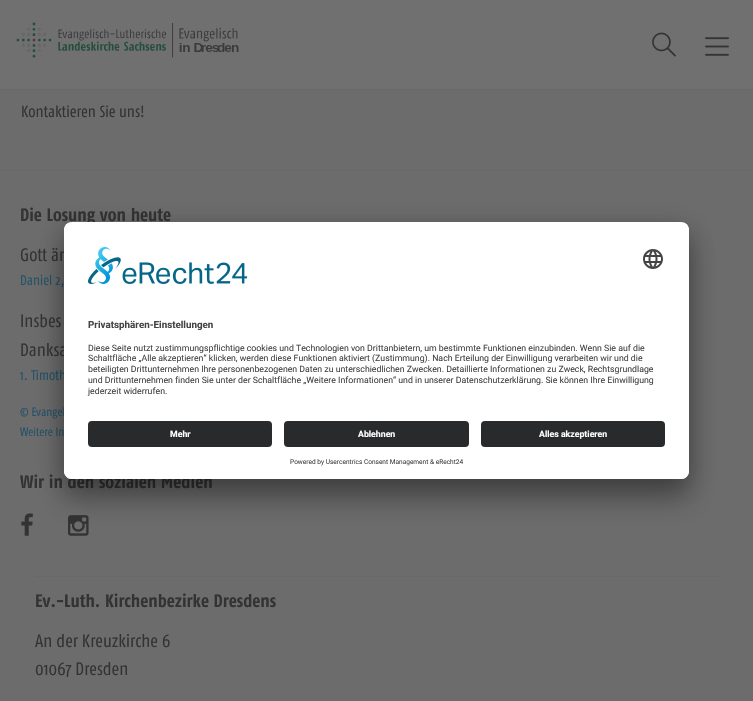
void draw(SkCanvas* canvas) {
    SkPaint paint;
    paint.setAntiAlias(true);
    auto face = [&](const char* family, int weight, float size, bool italic = false) {
        SkFontStyle style(weight, SkFontStyle::kNormal_Width,
            italic ? SkFontStyle::kItalic_Slant : SkFontStyle::kUpright_Slant);
        SkFont result(fontMgr->matchFamilyStyle(family, style), size);
        result.setSubpixel(true);
        return result;
    };
    auto write = [&](const char* s, float x, float y, const SkFont& font, SkColor color) {
        SkPaint ink(SkColor4f::FromColor(color));
        ink.setAntiAlias(true);
        canvas->drawString(s, x, y, font, ink);
    };
    auto block = [&](float x, float y, float w, float h, SkColor color) {
        SkPaint ink(SkColor4f::FromColor(color));
        ink.setAntiAlias(true);
        canvas->drawRect(SkRect::MakeXYWH(x, y, w, h), ink);
    };
    auto card = [&](float x, float y, float w, float h, float radius, SkColor color) {
        SkPaint ink(SkColor4f::FromColor(color));
        ink.setAntiAlias(true);
        canvas->drawRoundRect(SkRect::MakeXYWH(x, y, w, h), radius, radius, ink);
    };
    auto paste = [&](const char* path, float x, float y, float w, float h) {
        auto image = SkImages::DeferredFromEncodedData(SkData::MakeFromFileName(path));
        canvas->drawImageRect(image, SkRect::MakeXYWH(x, y, w, h), SkSamplingOptions());
    };
    canvas->clear(SkColorSetRGB(108, 108, 108));
    block(0, 0, 753, 89, SkColorSetRGB(112, 112, 112));
    block(0, 89, 753, 1, SkColorSetRGB(104, 104, 104));
    paste("pic1.png", 16, 22, 223, 36);
    paste("pic2.png", 652, 32, 24, 25);
    paste("pic3.png", 705, 37, 24, 19);
    block(0, 170, 753, 1, SkColorSetRGB(104, 104, 104));
    auto kFont1 = face("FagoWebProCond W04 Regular", 400, 16);
    write("Kontaktieren Sie uns!", 21, 117, kFont1, SkColorSetRGB(51, 51, 51));
    block(35, 576, 683, 1, SkColorSetRGB(104, 104, 104));
    auto kFont2 = face("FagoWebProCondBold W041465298", 700, 18);
    write("Die Losung von heute", 20, 221, kFont2, SkColorSetRGB(51, 51, 51));
    auto kFont3 = face("FagoWebProCond W04 Regular", 400, 18);
    write("Gott än", 20, 261, kFont3, SkColorSetRGB(51, 51, 51));
    auto kFont4 = face("FagoWebProCond W04 Regular", 400, 14);
    write("Daniel 2,", 20, 285, kFont4, SkColorSetRGB(36, 82, 103));
    write("Insbes", 20, 327, kFont3, SkColorSetRGB(51, 51, 51));
    write("Danksa", 20, 356, kFont3, SkColorSetRGB(51, 51, 51));
    write("1. Timoth", 20, 380, kFont4, SkColorSetRGB(36, 82, 103));
    auto kFont5 = face("FagoWebProCond W04 Regular", 400, 12);
    write("© Evangel", 20, 416, kFont5, SkColorSetRGB(36, 82, 103));
    write("Weitere In", 20, 436, kFont5, SkColorSetRGB(36, 82, 103));
    write("Wir in den sozialen Medien", 20, 488, kFont2, SkColorSetRGB(51, 51, 51));
    paste("pic4.png", 21, 513, 12, 23);
    paste("pic5.png", 68, 515, 21, 21);
    write("Ev.-Luth. Kirchenbezirke Dresdens", 35, 607, kFont2, SkColorSetRGB(51, 51, 51));
    write("An der Kreuzkirche 6", 35, 647, kFont3, SkColorSetRGB(51, 51, 51));
    write("01067 Dresden", 35, 675, kFont3, SkColorSetRGB(51, 51, 51));
    paint.setColor(SkColorSetARGB(77, 0, 0, 0));
    paint.setMaskFilter(SkMaskFilter::MakeBlur(kNormal_SkBlurStyle, 14));
    canvas->drawRoundRect(SkRect::MakeXYWH(64, 242, 625, 257), 8, 8, paint);
    paint.setMaskFilter(nullptr);
    paint.setColor(SkColorSetARGB(56, 0, 0, 0));
    paint.setMaskFilter(SkMaskFilter::MakeBlur(kNormal_SkBlurStyle, 13));
    canvas->drawRoundRect(SkRect::MakeXYWH(64, 227, 625, 257), 8, 8, paint);
    paint.setMaskFilter(nullptr);
    card(64, 222, 625, 257, 8, SK_ColorWHITE);
    canvas->save();
    canvas->clipPath(SkPathBuilder().moveTo(72, 222).lineTo(681, 222).cubicTo(685.5f, 222, 689, 225.5f, 689, 230).lineTo(689, 471).cubicTo(689, 475.5f, 685.5f, 479, 681, 479).lineTo(72, 479).cubicTo(67.5f, 479, 64, 475.5f, 64, 471).lineTo(64, 230).cubicTo(64, 225.5f, 67.5f, 222, 72, 222).close().detach(), true);
    canvas->clipPath(SkPathBuilder().moveTo(72, 222).lineTo(681, 222).cubicTo(685.5f, 222, 689, 225.5f, 689, 230).lineTo(689, 413).lineTo(64, 413).lineTo(64, 230).cubicTo(64, 225.5f, 67.5f, 222, 72, 222).close().detach(), true);
    block(64, 223, 625, 190, SK_ColorWHITE);
    canvas->restore();
    paste("pic6.png", 88, 247, 160, 37);
    paste("pic7.png", 643, 249, 20, 20);
    auto kFont6 = face("Roboto", 700, 9.8f);
    write("Privatsphären-Einstellungen", 88, 328, kFont6, SkColorSetRGB(68, 68, 68));
    auto kFont7 = face("Roboto", 400, 8.75f);
    write("Diese Seite nutzt zustimmungspflichtige cookies und Technologien von Drittanbietern, um bestimmte Funktionen einzubinden. Wenn Sie auf die", 88, 351, kFont7, SkColorSetRGB(68, 68, 68));
    write("Schaltfläche „Alle akzeptieren“ klicken, werden diese Funktionen aktiviert (Zustimmung). Nach Erteilung der Einwilligung verarbeiten wir und die", 88, 361, kFont7, SkColorSetRGB(68, 68, 68));
    write("beteiligten Drittunternehmen Ihre personenbezogenen Daten zu unterschiedlichen Zwecken. Detaillierte Informationen zu Zweck, Rechtsgrundlage", 88, 372, kFont7, SkColorSetRGB(68, 68, 68));
    write("und Drittunternehmen finden Sie unter der Schaltfläche „Weitere Informationen“ und in unserer Datenschutzerklärung. Sie können Ihre Einwilligung", 88, 383, kFont7, SkColorSetRGB(68, 68, 68));
    write("jederzeit widerrufen.", 88, 394, kFont7, SkColorSetRGB(68, 68, 68));
    paint.setColor(SK_ColorWHITE);
    canvas->drawPath(SkPathBuilder().moveTo(64, 413).lineTo(689, 413).lineTo(689, 471).cubicTo(689, 475.5f, 685.5f, 479, 681, 479).lineTo(72, 479).cubicTo(67.5f, 479, 64, 475.5f, 64, 471).close().detach(), paint);
    card(88, 421, 184, 26, 4, SkColorSetRGB(41, 42, 43));
    auto kFont8 = face("Roboto", 700, 8.75f);
    write("Mehr", 170, 437, kFont8, SK_ColorWHITE);
    card(284, 421, 185, 26, 4, SkColorSetRGB(41, 42, 43));
    write("Ablehnen", 358, 437, kFont8, SK_ColorWHITE);
    card(481, 421, 184, 26, 4, SkColorSetRGB(41, 42, 43));
    write("Alles akzeptieren", 539, 437, kFont8, SK_ColorWHITE);
    auto kFont9 = face("Roboto", 400, 6.55f);
    write("Powered by Usercentrics Consent Management & eRecht24", 290, 464, kFont9, SkColorSetRGB(68, 68, 68));
}
